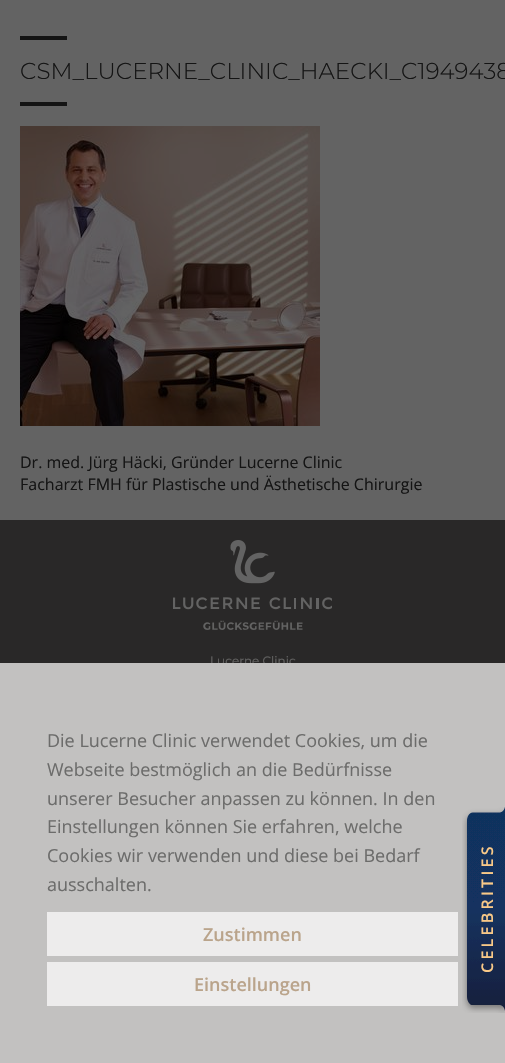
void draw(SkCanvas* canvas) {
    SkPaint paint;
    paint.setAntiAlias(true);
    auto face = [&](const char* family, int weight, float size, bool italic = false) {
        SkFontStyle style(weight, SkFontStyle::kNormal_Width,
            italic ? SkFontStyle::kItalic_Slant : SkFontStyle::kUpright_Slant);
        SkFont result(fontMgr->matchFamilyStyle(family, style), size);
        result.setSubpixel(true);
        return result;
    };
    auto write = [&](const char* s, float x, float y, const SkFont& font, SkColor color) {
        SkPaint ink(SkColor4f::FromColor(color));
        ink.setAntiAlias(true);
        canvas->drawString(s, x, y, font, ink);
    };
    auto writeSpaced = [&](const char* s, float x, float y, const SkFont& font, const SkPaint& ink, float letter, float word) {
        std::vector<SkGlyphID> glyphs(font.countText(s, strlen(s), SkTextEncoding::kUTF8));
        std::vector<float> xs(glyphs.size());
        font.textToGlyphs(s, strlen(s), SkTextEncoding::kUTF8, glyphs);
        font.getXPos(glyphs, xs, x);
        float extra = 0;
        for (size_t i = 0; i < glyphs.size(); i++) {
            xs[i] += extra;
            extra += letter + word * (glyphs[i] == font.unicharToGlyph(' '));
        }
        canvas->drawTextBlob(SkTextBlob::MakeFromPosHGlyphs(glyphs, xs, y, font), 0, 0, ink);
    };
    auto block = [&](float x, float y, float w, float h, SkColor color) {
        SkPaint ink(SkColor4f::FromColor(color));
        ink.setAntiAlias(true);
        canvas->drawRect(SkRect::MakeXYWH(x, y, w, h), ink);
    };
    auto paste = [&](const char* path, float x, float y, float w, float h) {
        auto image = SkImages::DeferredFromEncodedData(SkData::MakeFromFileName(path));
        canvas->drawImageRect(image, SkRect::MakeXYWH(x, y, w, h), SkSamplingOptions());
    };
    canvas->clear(SK_ColorWHITE);
    block(20, 36, 47, 4, SkColorSetRGB(51, 51, 51));
    auto kFont1 = face("Montserrat", 100, 23);
    write("CSM_LUCERNE_CLINIC_HAECKI_C1949438", 20, 79, kFont1, SkColorSetRGB(51, 51, 51));
    block(20, 102, 47, 4, SkColorSetRGB(51, 51, 51));
    paste("pic1.png", 20, 126, 300, 300);
    auto kFont2 = face("Open Sans", 400, 16);
    write("Dr. med. Jürg Häcki, Gründer Lucerne Clinic", 20, 468, kFont2, SkColorSetRGB(51, 51, 51));
    write("Facharzt FMH für Plastische und Ästhetische Chirurgie", 20, 490, kFont2, SkColorSetRGB(51, 51, 51));
    block(0, 520, 505, 143, SkColorSetRGB(106, 103, 101));
    paste("pic2.png", 173, 540, 159, 90);
    auto kFont3 = face("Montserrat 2", 100, 12);
    write("Lucerne Clinic", 210, 665, kFont3, SK_ColorWHITE);
    block(0, 0, 505, 663, SkColorSetARGB(156, 0, 0, 0));
    block(0, 663, 505, 400, SkColorSetRGB(194, 193, 192));
    auto kFont4 = face("Open Sans", 400, 18);
    write("Die Lucerne Clinic verwendet Cookies, um die", 47, 747, kFont4, SkColorSetRGB(108, 108, 107));
    write("Webseite bestmöglich an die Bedürfnisse", 47, 776, kFont4, SkColorSetRGB(108, 108, 107));
    write("unserer Besucher anpassen zu können. In den", 47, 805, kFont4, SkColorSetRGB(108, 108, 107));
    write("Einstellungen können Sie erfahren, welche", 47, 833, kFont4, SkColorSetRGB(108, 108, 107));
    write("Cookies wir verwenden und diese bei Bedarf", 47, 862, kFont4, SkColorSetRGB(108, 108, 107));
    write("ausschalten.", 47, 891, kFont4, SkColorSetRGB(108, 108, 107));
    block(47, 912, 411, 44, SkColorSetRGB(237, 236, 236));
    auto kFont5 = face("Open Sans", 600, 18);
    write("Zustimmen", 203, 941, kFont5, SkColorSetRGB(186, 164, 139));
    block(47, 962, 411, 44, SkColorSetRGB(237, 236, 236));
    write("Einstellungen", 194, 991, kFont5, SkColorSetRGB(186, 164, 139));
    paste("pic3.png", 462, 807, 43, 206);
    auto kFont6 = face("Open Sans", 600, 16);
    paint.setColor(SkColorSetRGB(249, 201, 136));
    canvas->save();
    canvas->rotate(-90, 493, 973);
    writeSpaced("CELEBRITIES", 493, 973, kFont6, paint, 3.25f, 0);
    canvas->restore();
}
